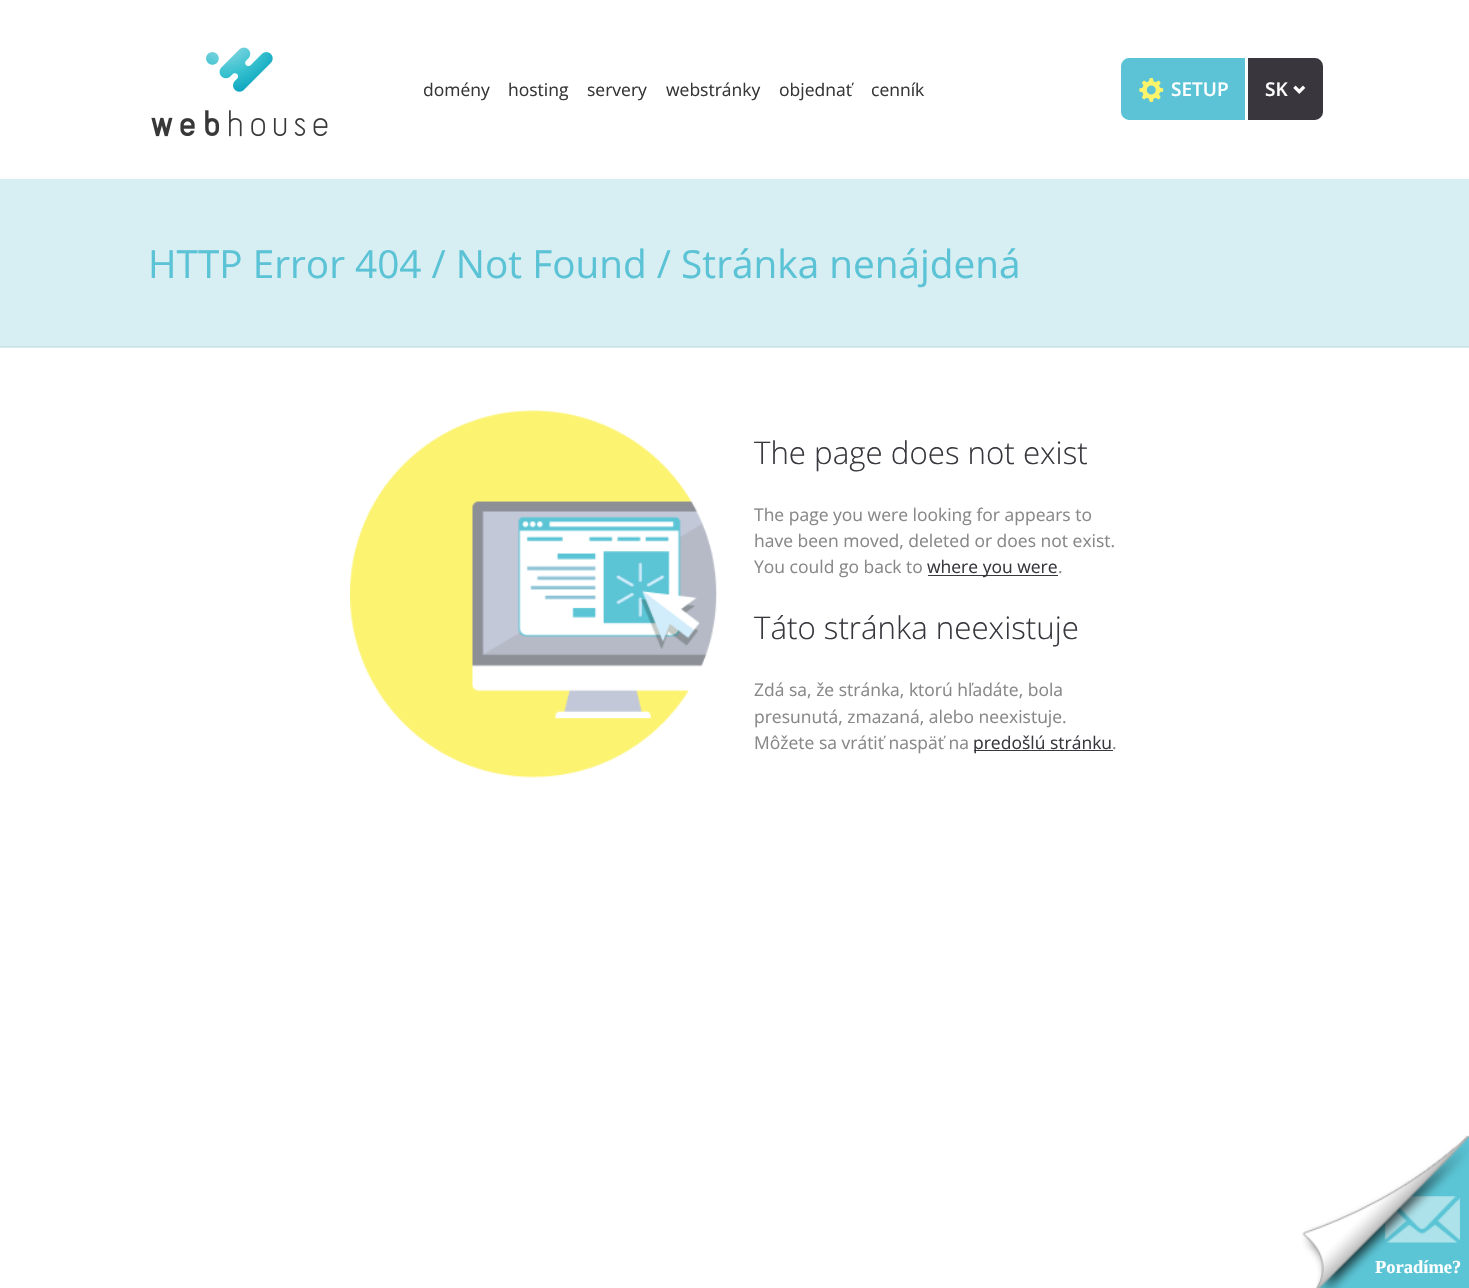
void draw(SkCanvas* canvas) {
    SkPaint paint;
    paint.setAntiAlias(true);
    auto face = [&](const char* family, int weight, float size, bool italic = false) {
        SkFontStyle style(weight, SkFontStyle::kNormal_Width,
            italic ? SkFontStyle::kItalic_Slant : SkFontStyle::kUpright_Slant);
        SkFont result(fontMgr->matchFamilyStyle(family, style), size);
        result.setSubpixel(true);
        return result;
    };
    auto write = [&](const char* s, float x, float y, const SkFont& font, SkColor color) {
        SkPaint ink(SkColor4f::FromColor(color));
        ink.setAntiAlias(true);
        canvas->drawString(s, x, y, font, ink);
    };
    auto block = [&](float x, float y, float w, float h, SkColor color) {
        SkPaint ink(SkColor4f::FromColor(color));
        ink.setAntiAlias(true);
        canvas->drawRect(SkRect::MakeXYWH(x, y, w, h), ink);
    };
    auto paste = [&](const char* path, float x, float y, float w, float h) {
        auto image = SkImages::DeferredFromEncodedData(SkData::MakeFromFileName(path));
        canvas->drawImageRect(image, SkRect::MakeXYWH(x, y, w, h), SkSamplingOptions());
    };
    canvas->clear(SK_ColorWHITE);
    paste("pic1.png", 151, 47, 177, 90);
    auto kFont1 = face("Open Sans", 400, 17.5f);
    write("domény", 423, 96, kFont1, SkColorSetRGB(55, 53, 53));
    write("hosting", 508, 96, kFont1, SkColorSetRGB(55, 53, 53));
    write("servery", 587, 96, kFont1, SkColorSetRGB(55, 53, 53));
    write("webstránky", 666, 96, kFont1, SkColorSetRGB(55, 53, 53));
    write("objednať", 779, 96, kFont1, SkColorSetRGB(55, 53, 53));
    write("cenník", 871, 96, kFont1, SkColorSetRGB(55, 53, 53));
    paint.setColor(SkColorSetRGB(91, 195, 213));
    canvas->drawPath(SkPathBuilder().moveTo(1129, 59.5f).lineTo(1243.5f, 59.5f).lineTo(1243.5f, 118.5f).lineTo(1129, 118.5f).cubicTo(1125.5f, 118.5f, 1122.5f, 115.5f, 1122.5f, 112).lineTo(1122.5f, 66).cubicTo(1122.5f, 62.5f, 1125.5f, 59.5f, 1129, 59.5f).close().detach(), paint);
    paint.setStyle(SkPaint::kStroke_Style);
    paint.setStrokeWidth(3);
    canvas->drawPath(SkPathBuilder().moveTo(1129, 59.5f).lineTo(1243.5f, 59.5f).lineTo(1243.5f, 118.5f).lineTo(1129, 118.5f).cubicTo(1125.5f, 118.5f, 1122.5f, 115.5f, 1122.5f, 112).lineTo(1122.5f, 66).cubicTo(1122.5f, 62.5f, 1125.5f, 59.5f, 1129, 59.5f).close().detach(), paint);
    paste("pic2.png", 1139, 78, 25, 24);
    auto kFont2 = face("Open Sans", 600, 19);
    write("SETUP", 1171, 96, kFont2, SK_ColorWHITE);
    paint.setStyle(SkPaint::kFill_Style);
    paint.setColor(SkColorSetRGB(57, 55, 61));
    canvas->drawPath(SkPathBuilder().moveTo(1249.5f, 59.5f).lineTo(1315, 59.5f).cubicTo(1318.5f, 59.5f, 1321.5f, 62.5f, 1321.5f, 66).lineTo(1321.5f, 112).cubicTo(1321.5f, 115.5f, 1318.5f, 118.5f, 1315, 118.5f).lineTo(1249.5f, 118.5f).close().detach(), paint);
    paint.setStyle(SkPaint::kStroke_Style);
    canvas->drawPath(SkPathBuilder().moveTo(1249.5f, 59.5f).lineTo(1315, 59.5f).cubicTo(1318.5f, 59.5f, 1321.5f, 62.5f, 1321.5f, 66).lineTo(1321.5f, 112).cubicTo(1321.5f, 115.5f, 1318.5f, 118.5f, 1315, 118.5f).lineTo(1249.5f, 118.5f).close().detach(), paint);
    write("SK", 1265, 96, kFont2, SK_ColorWHITE);
    paste("pic3.png", 1293, 85, 13, 9);
    block(0, 179, 1469, 169, SkColorSetRGB(215, 239, 243));
    block(0, 346, 1469, 1, SkColorSetRGB(201, 223, 227));
    auto kFont3 = face("Open Sans", 400, 38.75f);
    write("HTTP Error 404 / Not Found / Stránka nenájdená", 148, 278, kFont3, SkColorSetRGB(91, 195, 213));
    paste("pic4.png", 350, 410, 367, 368);
    auto kFont4 = face("Open Sans", 300, 31.25f);
    write("The page does not exist", 754, 464, kFont4, SkColorSetRGB(57, 55, 61));
    write("The page you were looking for appears to", 754, 521, kFont1, SkColorSetRGB(137, 135, 135));
    write("have been moved, deleted or does not exist.", 754, 547, kFont1, SkColorSetRGB(137, 135, 135));
    write("You could go back to", 754, 573, kFont1, SkColorSetRGB(137, 135, 135));
    block(928, 575, 130, 1, SkColorSetRGB(57, 55, 61));
    write("where you were", 927, 573, kFont1, SkColorSetRGB(57, 55, 61));
    write(".", 1058, 573, kFont1, SkColorSetRGB(137, 135, 135));
    write("Táto stránka neexistuje", 754, 639, kFont4, SkColorSetRGB(57, 55, 61));
    write("Zdá sa, že stránka, ktorú hľadáte, bola", 754, 696, kFont1, SkColorSetRGB(137, 135, 135));
    write("presunutá, zmazaná, alebo neexistuje.", 754, 723, kFont1, SkColorSetRGB(137, 135, 135));
    write("Môžete sa vrátiť naspäť na", 754, 749, kFont1, SkColorSetRGB(137, 135, 135));
    block(974, 750, 139, 1, SkColorSetRGB(57, 55, 61));
    write("predošlú stránku", 973, 749, kFont1, SkColorSetRGB(57, 55, 61));
    write(".", 1112, 749, kFont1, SkColorSetRGB(137, 135, 135));
    paint.setStyle(SkPaint::kFill_Style);
    paint.setColor(SkColorSetRGB(91, 197, 213));
    canvas->drawPath(SkPathBuilder().moveTo(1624, 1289).lineTo(1316, 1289).lineTo(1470, 1135).close().detach(), paint);
    paste("pic5.png", 1384, 1196, 76, 47);
    paste("pic6.png", 1302, 1135, 167, 153);
    auto kFont5 = face("Liberation Serif", 700, 18.5f);
    write("Poradíme?", 1375, 1273, kFont5, SK_ColorWHITE);
}
